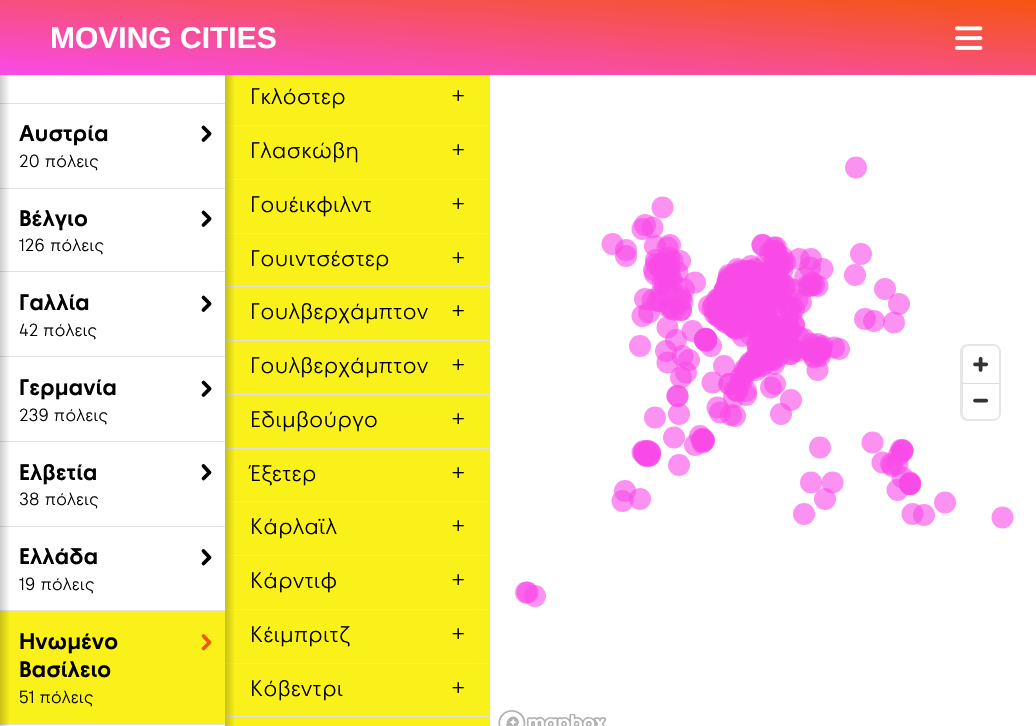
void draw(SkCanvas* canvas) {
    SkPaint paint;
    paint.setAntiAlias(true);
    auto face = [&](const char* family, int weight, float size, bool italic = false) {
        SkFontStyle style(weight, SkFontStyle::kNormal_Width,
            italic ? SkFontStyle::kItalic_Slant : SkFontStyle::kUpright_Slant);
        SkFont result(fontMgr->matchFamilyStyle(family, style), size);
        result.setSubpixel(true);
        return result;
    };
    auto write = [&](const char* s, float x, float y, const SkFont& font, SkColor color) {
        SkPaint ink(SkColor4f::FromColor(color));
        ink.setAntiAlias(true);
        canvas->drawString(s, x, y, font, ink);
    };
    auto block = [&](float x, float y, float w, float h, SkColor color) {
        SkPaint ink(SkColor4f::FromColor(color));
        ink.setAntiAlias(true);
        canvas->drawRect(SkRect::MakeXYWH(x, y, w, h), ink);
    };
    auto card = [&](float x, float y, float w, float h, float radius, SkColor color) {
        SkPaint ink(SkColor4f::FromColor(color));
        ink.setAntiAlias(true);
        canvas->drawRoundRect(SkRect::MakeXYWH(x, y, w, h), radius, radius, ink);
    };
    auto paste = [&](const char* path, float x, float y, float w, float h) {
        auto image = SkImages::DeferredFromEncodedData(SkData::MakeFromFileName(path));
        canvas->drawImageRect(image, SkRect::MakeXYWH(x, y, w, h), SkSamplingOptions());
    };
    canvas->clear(SK_ColorWHITE);
    {
        const SkColor colors[] = {SkColorSetRGB(245, 85, 17), SkColorSetRGB(249, 74, 231)};
        const float stops[] = {0, 1};
        const SkPoint ends[] = {{524, -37}, {513, 112}};
        paint.setShader(SkGradientShader::MakeLinear(ends, colors, stops, 2, SkTileMode::kClamp));
        paint.setAlpha(255);
    }
    canvas->drawRect(SkRect::MakeXYWH(0, 0, 1036, 75), paint);
    auto kFont1 = face("Liberation Sans", 700, 30);
    write("MOVING CITIES", 50, 48, kFont1, SK_ColorWHITE);
    paste("pic1.png", 955, 26, 28, 24);
    block(0, 103, 225, 1, SkColorSetRGB(225, 225, 225));
    block(0, 188, 225, 1, SkColorSetRGB(225, 225, 225));
    block(0, 271, 225, 1, SkColorSetRGB(225, 225, 225));
    block(0, 356, 225, 1, SkColorSetRGB(225, 225, 225));
    block(0, 441, 225, 1, SkColorSetRGB(225, 225, 225));
    block(0, 526, 225, 1, SkColorSetRGB(225, 225, 225));
    block(0, 610, 225, 1, SkColorSetRGB(225, 225, 225));
    block(0, 611, 225, 113, SkColorSetRGB(250, 241, 26));
    block(0, 724, 225, 1, SkColorSetRGB(225, 225, 225));
    {
        const SkColor colors[] = {SkColorSetARGB(51, 0, 0, 0), SkColorSetARGB(0, 0, 0, 0)};
        const float stops[] = {0, 1};
        const SkPoint ends[] = {{0, 382}, {10, 382}};
        paint.setShader(SkGradientShader::MakeLinear(ends, colors, stops, 2, SkTileMode::kClamp));
        paint.setAlpha(255);
    }
    canvas->drawRect(SkRect::MakeXYWH(0, 75, 9, 651), paint);
    auto kFont2 = face("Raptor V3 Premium", 700, 22.5f);
    write("Αυστρία", 19, 141, kFont2, SK_ColorBLACK);
    auto kFont3 = face("Raptor V3 Premium", 400, 17.5f);
    write("20 πόλεις", 19, 167, kFont3, SK_ColorBLACK);
    paint.setStyle(SkPaint::kStroke_Style);
    paint.setStrokeWidth(3.8f);
    paint.setStrokeCap(SkPaint::kRound_Cap);
    paint.setShader(nullptr);
    paint.setColor(SK_ColorBLACK);
    canvas->drawPath(SkPathBuilder().moveTo(203.5f, 140).lineTo(209.5f, 134).moveTo(203.5f, 127.5f).lineTo(209.5f, 133.5f).detach(), paint);
    write("Βέλγιο", 19, 226, kFont2, SK_ColorBLACK);
    write("126 πόλεις", 19, 251, kFont3, SK_ColorBLACK);
    canvas->drawPath(SkPathBuilder().moveTo(203.5f, 225).lineTo(209.5f, 219).moveTo(203.5f, 212.5f).lineTo(209.5f, 218.5f).detach(), paint);
    write("Γαλλία", 19, 310, kFont2, SK_ColorBLACK);
    write("42 πόλεις", 19, 336, kFont3, SK_ColorBLACK);
    canvas->drawPath(SkPathBuilder().moveTo(203.5f, 310).lineTo(209.5f, 304).moveTo(203.5f, 297.5f).lineTo(209.5f, 303.5f).detach(), paint);
    write("Γερμανία", 19, 395, kFont2, SK_ColorBLACK);
    write("239 πόλεις", 19, 421, kFont3, SK_ColorBLACK);
    canvas->drawPath(SkPathBuilder().moveTo(203.5f, 395).lineTo(209.5f, 389).moveTo(203.5f, 382.5f).lineTo(209.5f, 388.5f).detach(), paint);
    write("Ελβετία", 19, 480, kFont2, SK_ColorBLACK);
    write("38 πόλεις", 19, 505, kFont3, SK_ColorBLACK);
    canvas->drawPath(SkPathBuilder().moveTo(203.5f, 478.5f).lineTo(209.5f, 472.5f).moveTo(203.5f, 466).lineTo(209.5f, 472.5f).detach(), paint);
    write("Ελλάδα", 19, 564, kFont2, SK_ColorBLACK);
    write("19 πόλεις", 19, 590, kFont3, SK_ColorBLACK);
    canvas->drawPath(SkPathBuilder().moveTo(203.5f, 563.5f).lineTo(209.5f, 557.5f).moveTo(203.5f, 551).lineTo(209.5f, 557.5f).detach(), paint);
    write("Ηνωμένο", 19, 649, kFont2, SK_ColorBLACK);
    write("Βασίλειο", 19, 677, kFont2, SK_ColorBLACK);
    write("51 πόλεις", 19, 703, kFont3, SK_ColorBLACK);
    paint.setColor(SkColorSetRGB(245, 85, 17));
    canvas->drawPath(SkPathBuilder().moveTo(203.5f, 648.5f).lineTo(209.5f, 642.5f).moveTo(203.5f, 636).lineTo(209.5f, 642.5f).detach(), paint);
    block(225, 75, 265, 651, SkColorSetRGB(250, 241, 26));
    block(225, 125, 265, 1, SkColorSetRGB(225, 225, 225));
    block(225, 179, 265, 1, SkColorSetRGB(225, 225, 225));
    block(225, 233, 265, 1, SkColorSetRGB(225, 225, 225));
    block(225, 286, 265, 1, SkColorSetRGB(225, 225, 225));
    block(225, 340, 265, 1, SkColorSetRGB(225, 225, 225));
    block(225, 394, 265, 1, SkColorSetRGB(225, 225, 225));
    block(225, 448, 265, 1, SkColorSetRGB(225, 225, 225));
    block(225, 501, 265, 1, SkColorSetRGB(225, 225, 225));
    block(225, 555, 265, 1, SkColorSetRGB(225, 225, 225));
    block(225, 609, 265, 1, SkColorSetRGB(225, 225, 225));
    block(225, 663, 265, 1, SkColorSetRGB(225, 225, 225));
    block(225, 716, 265, 1, SkColorSetRGB(225, 225, 225));
    paint.setStyle(SkPaint::kFill_Style);
    {
        const SkColor colors[] = {SkColorSetARGB(51, 0, 0, 0), SkColorSetARGB(0, 0, 0, 0)};
        const float stops[] = {0, 1};
        const SkPoint ends[] = {{225, 382}, {235, 382}};
        paint.setShader(SkGradientShader::MakeLinear(ends, colors, stops, 2, SkTileMode::kClamp));
        paint.setAlpha(255);
    }
    canvas->drawRect(SkRect::MakeXYWH(225, 75, 9, 651), paint);
    auto kFont4 = face("Raptor V3 Premium", 400, 22.5f);
    write("Γκλόστερ", 250, 104, kFont4, SK_ColorBLACK);
    write("+", 451, 104, kFont4, SK_ColorBLACK);
    write("Γλασκώβη", 250, 158, kFont4, SK_ColorBLACK);
    write("+", 451, 158, kFont4, SK_ColorBLACK);
    write("Γουέικφιλντ", 250, 212, kFont4, SK_ColorBLACK);
    write("+", 451, 212, kFont4, SK_ColorBLACK);
    write("Γουιντσέστερ", 250, 266, kFont4, SK_ColorBLACK);
    write("+", 451, 266, kFont4, SK_ColorBLACK);
    write("Γουλβερχάμπτον", 250, 319, kFont4, SK_ColorBLACK);
    write("+", 451, 319, kFont4, SK_ColorBLACK);
    write("Γουλβερχάμπτον", 250, 373, kFont4, SK_ColorBLACK);
    write("+", 451, 373, kFont4, SK_ColorBLACK);
    write("Εδιμβούργο", 250, 427, kFont4, SK_ColorBLACK);
    write("+", 451, 427, kFont4, SK_ColorBLACK);
    write("Έξετερ", 250, 481, kFont4, SK_ColorBLACK);
    write("+", 451, 481, kFont4, SK_ColorBLACK);
    write("Κάρλαϊλ", 250, 534, kFont4, SK_ColorBLACK);
    write("+", 451, 534, kFont4, SK_ColorBLACK);
    write("Κάρντιφ", 250, 588, kFont4, SK_ColorBLACK);
    write("+", 451, 588, kFont4, SK_ColorBLACK);
    write("Κέιμπριτζ", 250, 642, kFont4, SK_ColorBLACK);
    write("+", 451, 642, kFont4, SK_ColorBLACK);
    write("Κόβεντρι", 250, 696, kFont4, SK_ColorBLACK);
    write("+", 451, 696, kFont4, SK_ColorBLACK);
    paint.setShader(nullptr);
    paint.setColor(SkColorSetRGB(251, 146, 241));
    canvas->drawCircle(856, 167.5f, 11, paint);
    canvas->drawCircle(662.5f, 207.5f, 11, paint);
    canvas->drawCircle(642.5f, 229, 11, paint);
    paint.setColor(SkColorSetARGB(153, 249, 74, 231));
    canvas->drawCircle(652.5f, 227.5f, 11, paint);
    paint.setColor(SkColorSetRGB(251, 146, 241));
    canvas->drawCircle(669, 265, 11, paint);
    canvas->drawCircle(661, 294, 11, paint);
    paint.setColor(SkColorSetARGB(153, 249, 74, 231));
    canvas->drawCircle(662.5f, 282.5f, 11, paint);
    canvas->drawCircle(672.5f, 261, 11, paint);
    canvas->drawCircle(655, 246, 11, paint);
    canvas->drawCircle(645, 225, 11, paint);
    paint.setColor(SkColorSetRGB(251, 146, 241));
    canvas->drawCircle(612.5f, 244, 11, paint);
    paint.setColor(SkColorSetARGB(153, 249, 74, 231));
    canvas->drawCircle(656, 260, 11, paint);
    paint.setColor(SkColorSetRGB(251, 146, 241));
    canvas->drawCircle(734, 314, 11, paint);
    paint.setColor(SkColorSetARGB(153, 249, 74, 231));
    canvas->drawCircle(736, 326, 11, paint);
    canvas->drawCircle(736, 314, 11, paint);
    canvas->drawCircle(731, 312.5f, 11, paint);
    canvas->drawCircle(724, 310, 11, paint);
    canvas->drawCircle(724, 316, 11, paint);
    canvas->drawCircle(739, 326, 11, paint);
    canvas->drawCircle(729, 320, 11, paint);
    canvas->drawCircle(726, 312.5f, 11, paint);
    canvas->drawCircle(715, 309, 11, paint);
    canvas->drawCircle(709, 306, 11, paint);
    canvas->drawCircle(739, 314, 11, paint);
    canvas->drawCircle(740, 319, 11, paint);
    canvas->drawCircle(726, 314, 11, paint);
    canvas->drawCircle(726, 321, 11, paint);
    canvas->drawCircle(714, 305, 11, paint);
    canvas->drawCircle(736, 329, 11, paint);
    canvas->drawCircle(736, 324, 11, paint);
    canvas->drawCircle(719, 306, 11, paint);
    canvas->drawCircle(724, 310, 11, paint);
    canvas->drawCircle(735, 307.5f, 11, paint);
    canvas->drawCircle(727.5f, 311, 11, paint);
    canvas->drawCircle(722.5f, 314, 11, paint);
    canvas->drawCircle(736, 317.5f, 11, paint);
    canvas->drawCircle(736, 312.5f, 11, paint);
    canvas->drawCircle(736, 327.5f, 11, paint);
    paint.setColor(SkColorSetRGB(249, 74, 231));
    canvas->drawCircle(725, 310, 11, paint);
    paint.setColor(SkColorSetARGB(153, 249, 74, 231));
    canvas->drawCircle(724, 305, 11, paint);
    canvas->drawCircle(725, 314, 11, paint);
    canvas->drawCircle(724, 312.5f, 11, paint);
    canvas->drawCircle(726, 322.5f, 11, paint);
    canvas->drawCircle(722.5f, 315, 11, paint);
    canvas->drawCircle(727.5f, 310, 11, paint);
    canvas->drawCircle(736, 314, 11, paint);
    canvas->drawCircle(732.5f, 322.5f, 11, paint);
    canvas->drawCircle(712.5f, 307.5f, 11, paint);
    canvas->drawCircle(735, 324, 11, paint);
    canvas->drawCircle(724, 315, 11, paint);
    canvas->drawCircle(737.5f, 319, 11, paint);
    canvas->drawCircle(719, 307.5f, 11, paint);
    canvas->drawCircle(720, 316, 11, paint);
    canvas->drawCircle(737.5f, 320, 11, paint);
    canvas->drawCircle(717.5f, 316, 11, paint);
    canvas->drawCircle(737.5f, 321, 11, paint);
    canvas->drawCircle(732.5f, 325, 11, paint);
    canvas->drawCircle(724, 319, 11, paint);
    canvas->drawCircle(724, 306, 11, paint);
    canvas->drawCircle(729, 311, 11, paint);
    canvas->drawCircle(731, 325, 11, paint);
    canvas->drawCircle(716, 307.5f, 11, paint);
    canvas->drawCircle(719, 316, 11, paint);
    canvas->drawCircle(734, 311, 11, paint);
    canvas->drawCircle(732.5f, 312.5f, 11, paint);
    canvas->drawCircle(725, 305, 11, paint);
    canvas->drawCircle(739, 321, 11, paint);
    canvas->drawCircle(719, 315, 11, paint);
    canvas->drawCircle(736, 314, 11, paint);
    canvas->drawCircle(722.5f, 320, 11, paint);
    paint.setColor(SkColorSetRGB(251, 146, 241));
    canvas->drawCircle(706, 340, 11, paint);
    paint.setColor(SkColorSetARGB(153, 249, 74, 231));
    canvas->drawCircle(705, 340, 11, paint);
    canvas->drawCircle(706, 341, 11, paint);
    canvas->drawCircle(706, 339, 11, paint);
    canvas->drawCircle(705, 340, 11, paint);
    canvas->drawCircle(706, 340, 11, paint);
    canvas->drawCircle(706, 339, 11, paint);
    canvas->drawCircle(705, 340, 11, paint);
    canvas->drawCircle(692.5f, 331, 11, paint);
    paint.setColor(SkColorSetRGB(251, 146, 241));
    canvas->drawCircle(682.5f, 356, 11, paint);
    canvas->drawCircle(681, 377.5f, 11, paint);
    paint.setColor(SkColorSetARGB(153, 249, 74, 231));
    canvas->drawCircle(667.5f, 362.5f, 11, paint);
    canvas->drawCircle(666, 351, 11, paint);
    canvas->drawCircle(676, 340, 11, paint);
    canvas->drawCircle(667.5f, 327.5f, 11, paint);
    canvas->drawCircle(670, 306, 11, paint);
    canvas->drawCircle(684, 289, 11, paint);
    canvas->drawCircle(649, 312.5f, 11, paint);
    canvas->drawCircle(652.5f, 300, 11, paint);
    canvas->drawCircle(669, 286, 11, paint);
    canvas->drawCircle(672.5f, 282.5f, 11, paint);
    canvas->drawCircle(654, 270, 11, paint);
    canvas->drawCircle(677.5f, 272.5f, 11, paint);
    canvas->drawCircle(667.5f, 264, 11, paint);
    canvas->drawCircle(681, 299, 11, paint);
    canvas->drawCircle(682.5f, 301, 11, paint);
    canvas->drawCircle(665, 281, 11, paint);
    canvas->drawCircle(661, 269, 11, paint);
    canvas->drawCircle(660, 301, 11, paint);
    canvas->drawCircle(665, 285, 11, paint);
    canvas->drawCircle(661, 264, 11, paint);
    canvas->drawCircle(659, 265, 11, paint);
    canvas->drawCircle(660, 267.5f, 11, paint);
    canvas->drawCircle(666, 264, 11, paint);
    canvas->drawCircle(667.5f, 247.5f, 11, paint);
    canvas->drawCircle(671, 277.5f, 11, paint);
    canvas->drawCircle(669, 277.5f, 11, paint);
    canvas->drawCircle(656, 264, 11, paint);
    canvas->drawCircle(669, 257.5f, 11, paint);
    canvas->drawCircle(670, 245, 11, paint);
    paint.setColor(SkColorSetRGB(251, 146, 241));
    canvas->drawCircle(779, 267.5f, 11, paint);
    canvas->drawCircle(777.5f, 295, 11, paint);
    paint.setColor(SkColorSetARGB(153, 249, 74, 231));
    canvas->drawCircle(776, 286, 11, paint);
    paint.setColor(SkColorSetRGB(251, 146, 241));
    canvas->drawCircle(755, 269, 11, paint);
    paint.setColor(SkColorSetARGB(153, 249, 74, 231));
    canvas->drawCircle(767.5f, 276, 11, paint);
    canvas->drawCircle(719, 314, 11, paint);
    canvas->drawCircle(734, 326, 11, paint);
    canvas->drawCircle(732.5f, 310, 11, paint);
    canvas->drawCircle(724, 306, 11, paint);
    canvas->drawCircle(735, 327.5f, 11, paint);
    canvas->drawCircle(731, 306, 11, paint);
    canvas->drawCircle(739, 312.5f, 11, paint);
    canvas->drawCircle(745, 299, 11, paint);
    canvas->drawCircle(760, 301, 11, paint);
    paint.setColor(SkColorSetRGB(251, 146, 241));
    canvas->drawCircle(821, 349, 11, paint);
    paint.setColor(SkColorSetARGB(153, 249, 74, 231));
    canvas->drawCircle(839, 349, 11, paint);
    canvas->drawCircle(811, 350, 11, paint);
    canvas->drawCircle(822.5f, 346, 11, paint);
    canvas->drawCircle(821, 349, 11, paint);
    canvas->drawCircle(820, 351, 11, paint);
    canvas->drawCircle(810, 351, 11, paint);
    canvas->drawCircle(817.5f, 349, 11, paint);
    canvas->drawCircle(819, 354, 11, paint);
    canvas->drawCircle(814, 357.5f, 11, paint);
    canvas->drawCircle(814, 356, 11, paint);
    canvas->drawCircle(814, 347.5f, 11, paint);
    canvas->drawCircle(809, 350, 11, paint);
    canvas->drawCircle(790, 345, 11, paint);
    canvas->drawCircle(791, 331, 11, paint);
    canvas->drawCircle(715, 314, 11, paint);
    canvas->drawCircle(734, 327.5f, 11, paint);
    canvas->drawCircle(739, 327.5f, 11, paint);
    canvas->drawCircle(742.5f, 336, 11, paint);
    canvas->drawCircle(757.5f, 344, 11, paint);
    paint.setColor(SkColorSetRGB(251, 146, 241));
    canvas->drawCircle(770, 322.5f, 11, paint);
    paint.setColor(SkColorSetARGB(153, 249, 74, 231));
    canvas->drawCircle(770, 339, 11, paint);
    canvas->drawCircle(772.5f, 340, 11, paint);
    canvas->drawCircle(761, 321, 11, paint);
    canvas->drawCircle(756, 310, 11, paint);
    canvas->drawCircle(754, 297.5f, 11, paint);
    canvas->drawCircle(791, 307.5f, 11, paint);
    canvas->drawCircle(775, 287.5f, 11, paint);
    canvas->drawCircle(776, 267.5f, 11, paint);
    canvas->drawCircle(777.5f, 302.5f, 11, paint);
    canvas->drawCircle(786, 286, 11, paint);
    canvas->drawCircle(767.5f, 275, 11, paint);
    canvas->drawCircle(782.5f, 270, 11, paint);
    canvas->drawCircle(744, 301, 11, paint);
    canvas->drawCircle(742.5f, 305, 11, paint);
    canvas->drawCircle(746, 297.5f, 11, paint);
    canvas->drawCircle(754, 301, 11, paint);
    canvas->drawCircle(754, 306, 11, paint);
    canvas->drawCircle(744, 304, 11, paint);
    canvas->drawCircle(754, 301, 11, paint);
    canvas->drawCircle(759, 351, 11, paint);
    canvas->drawCircle(765, 332.5f, 11, paint);
    canvas->drawCircle(751, 311, 11, paint);
    canvas->drawCircle(787.5f, 337.5f, 11, paint);
    canvas->drawCircle(777.5f, 326, 11, paint);
    canvas->drawCircle(760, 324, 11, paint);
    canvas->drawCircle(752.5f, 302.5f, 11, paint);
    canvas->drawCircle(760, 289, 11, paint);
    canvas->drawCircle(794, 309, 11, paint);
    canvas->drawCircle(777.5f, 299, 11, paint);
    canvas->drawCircle(784, 285, 11, paint);
    canvas->drawCircle(775, 265, 11, paint);
    paint.setColor(SkColorSetRGB(251, 146, 241));
    canvas->drawCircle(762.5f, 245, 11, paint);
    paint.setColor(SkColorSetARGB(153, 249, 74, 231));
    canvas->drawCircle(751, 271, 11, paint);
    canvas->drawCircle(744, 309, 11, paint);
    canvas->drawCircle(755, 290, 11, paint);
    canvas->drawCircle(764, 351, 11, paint);
    canvas->drawCircle(790, 354, 11, paint);
    canvas->drawCircle(770, 340, 11, paint);
    canvas->drawCircle(766, 330, 11, paint);
    canvas->drawCircle(766, 314, 11, paint);
    canvas->drawCircle(786, 336, 11, paint);
    canvas->drawCircle(766, 324, 11, paint);
    canvas->drawCircle(747.5f, 312.5f, 11, paint);
    canvas->drawCircle(754, 307.5f, 11, paint);
    canvas->drawCircle(760, 310, 11, paint);
    canvas->drawCircle(760, 299, 11, paint);
    canvas->drawCircle(767.5f, 277.5f, 11, paint);
    canvas->drawCircle(774, 261, 11, paint);
    canvas->drawCircle(776, 261, 11, paint);
    canvas->drawCircle(756, 287.5f, 11, paint);
    canvas->drawCircle(745, 300, 11, paint);
    canvas->drawCircle(742.5f, 299, 11, paint);
    canvas->drawCircle(760, 279, 11, paint);
    canvas->drawCircle(766, 262.5f, 11, paint);
    canvas->drawCircle(785, 262.5f, 11, paint);
    canvas->drawCircle(782.5f, 264, 11, paint);
    canvas->drawCircle(789, 329, 11, paint);
    canvas->drawCircle(789, 307.5f, 11, paint);
    canvas->drawCircle(775, 355, 11, paint);
    canvas->drawCircle(772.5f, 341, 11, paint);
    canvas->drawCircle(760, 322.5f, 11, paint);
    canvas->drawCircle(775, 304, 11, paint);
    canvas->drawCircle(774, 302.5f, 11, paint);
    canvas->drawCircle(752.5f, 284, 11, paint);
    canvas->drawCircle(754, 272.5f, 11, paint);
    canvas->drawCircle(757.5f, 331, 11, paint);
    canvas->drawCircle(821, 347.5f, 11, paint);
    canvas->drawCircle(820, 356, 11, paint);
    canvas->drawCircle(821, 351, 11, paint);
    canvas->drawCircle(819, 349, 11, paint);
    canvas->drawCircle(817.5f, 344, 11, paint);
    canvas->drawCircle(817.5f, 370, 11, paint);
    canvas->drawCircle(797.5f, 351, 11, paint);
    canvas->drawCircle(779, 356, 11, paint);
    canvas->drawCircle(764, 337.5f, 11, paint);
    canvas->drawCircle(764, 321, 11, paint);
    canvas->drawCircle(755, 317.5f, 11, paint);
    canvas->drawCircle(759, 309, 11, paint);
    canvas->drawCircle(776, 287.5f, 11, paint);
    paint.setColor(SkColorSetRGB(249, 74, 231));
    canvas->drawCircle(762.5f, 297.5f, 11, paint);
    paint.setColor(SkColorSetARGB(153, 249, 74, 231));
    canvas->drawCircle(765, 287.5f, 11, paint);
    paint.setColor(SkColorSetRGB(251, 146, 241));
    canvas->drawCircle(811, 285, 11, paint);
    paint.setColor(SkColorSetARGB(153, 249, 74, 231));
    canvas->drawCircle(794, 290, 11, paint);
    canvas->drawCircle(779, 280, 11, paint);
    canvas->drawCircle(779, 285, 11, paint);
    canvas->drawCircle(777.5f, 271, 11, paint);
    canvas->drawCircle(752.5f, 281, 11, paint);
    canvas->drawCircle(751, 287.5f, 11, paint);
    canvas->drawCircle(769, 279, 11, paint);
    canvas->drawCircle(779, 259, 11, paint);
    canvas->drawCircle(751, 266, 11, paint);
    canvas->drawCircle(742.5f, 296, 11, paint);
    canvas->drawCircle(750, 285, 11, paint);
    canvas->drawCircle(761, 274, 11, paint);
    canvas->drawCircle(784, 287.5f, 11, paint);
    canvas->drawCircle(767.5f, 272.5f, 11, paint);
    canvas->drawCircle(782.5f, 257.5f, 11, paint);
    canvas->drawCircle(755, 274, 11, paint);
    canvas->drawCircle(775, 255, 11, paint);
    canvas->drawCircle(775, 251, 11, paint);
    canvas->drawCircle(754, 287.5f, 11, paint);
    canvas->drawCircle(765, 272.5f, 11, paint);
    canvas->drawCircle(774, 251, 11, paint);
    canvas->drawCircle(776, 247.5f, 11, paint);
    canvas->drawCircle(776, 252.5f, 11, paint);
    canvas->drawCircle(774, 247.5f, 11, paint);
    canvas->drawCircle(770, 252.5f, 11, paint);
    canvas->drawCircle(762.5f, 245, 11, paint);
    canvas->drawCircle(626, 250, 11, paint);
    paint.setColor(SkColorSetRGB(251, 146, 241));
    canvas->drawCircle(861, 254, 11, paint);
    paint.setColor(SkColorSetARGB(153, 249, 74, 231));
    canvas->drawCircle(626, 256, 11, paint);
    paint.setColor(SkColorSetRGB(251, 146, 241));
    canvas->drawCircle(811, 259, 11, paint);
    paint.setColor(SkColorSetARGB(153, 249, 74, 231));
    canvas->drawCircle(810, 267.5f, 11, paint);
    canvas->drawCircle(805, 277.5f, 11, paint);
    canvas->drawCircle(799, 259, 11, paint);
    canvas->drawCircle(669, 270, 11, paint);
    canvas->drawCircle(695, 282.5f, 11, paint);
    canvas->drawCircle(680, 261, 11, paint);
    canvas->drawCircle(747.5f, 276, 11, paint);
    canvas->drawCircle(729, 289, 11, paint);
    canvas->drawCircle(787.5f, 319, 11, paint);
    canvas->drawCircle(770, 356, 11, paint);
    canvas->drawCircle(760, 335, 11, paint);
    canvas->drawCircle(764, 330, 11, paint);
    canvas->drawCircle(771, 339, 11, paint);
    canvas->drawCircle(767.5f, 320, 11, paint);
    canvas->drawCircle(764, 330, 11, paint);
    canvas->drawCircle(766, 311, 11, paint);
    canvas->drawCircle(746, 294, 11, paint);
    canvas->drawCircle(735, 301, 11, paint);
    canvas->drawCircle(729, 282.5f, 11, paint);
    canvas->drawCircle(746, 286, 11, paint);
    canvas->drawCircle(732.5f, 286, 11, paint);
    canvas->drawCircle(727.5f, 290, 11, paint);
    canvas->drawCircle(737.5f, 269, 11, paint);
    canvas->drawCircle(812.5f, 282.5f, 11, paint);
    canvas->drawCircle(807.5f, 286, 11, paint);
    canvas->drawCircle(779, 297.5f, 11, paint);
    canvas->drawCircle(781, 296, 11, paint);
    canvas->drawCircle(771, 339, 11, paint);
    canvas->drawCircle(767.5f, 321, 11, paint);
    canvas->drawCircle(774, 346, 11, paint);
    canvas->drawCircle(789, 327.5f, 11, paint);
    canvas->drawCircle(794, 324, 11, paint);
    canvas->drawCircle(787.5f, 324, 11, paint);
    canvas->drawCircle(794, 350, 11, paint);
    canvas->drawCircle(776, 330, 11, paint);
    canvas->drawCircle(776, 352.5f, 11, paint);
    canvas->drawCircle(776, 350, 11, paint);
    canvas->drawCircle(786, 334, 11, paint);
    canvas->drawCircle(761, 324, 11, paint);
    canvas->drawCircle(767.5f, 342.5f, 11, paint);
    canvas->drawCircle(789, 331, 11, paint);
    canvas->drawCircle(811, 344, 11, paint);
    canvas->drawCircle(779, 346, 11, paint);
    canvas->drawCircle(794, 326, 11, paint);
    canvas->drawCircle(791, 312.5f, 11, paint);
    canvas->drawCircle(801, 302.5f, 11, paint);
    canvas->drawCircle(814, 285, 11, paint);
    canvas->drawCircle(810, 286, 11, paint);
    canvas->drawCircle(817.5f, 286, 11, paint);
    canvas->drawCircle(822.5f, 269, 11, paint);
    canvas->drawCircle(734, 290, 11, paint);
    canvas->drawCircle(730, 287.5f, 11, paint);
    canvas->drawCircle(730, 286, 11, paint);
    canvas->drawCircle(729, 292.5f, 11, paint);
    canvas->drawCircle(740, 289, 11, paint);
    canvas->drawCircle(749, 271, 11, paint);
    canvas->drawCircle(745, 276, 11, paint);
    canvas->drawCircle(731, 297.5f, 11, paint);
    canvas->drawCircle(727.5f, 291, 11, paint);
    canvas->drawCircle(731, 285, 11, paint);
    canvas->drawCircle(727.5f, 285, 11, paint);
    canvas->drawCircle(744, 274, 11, paint);
    canvas->drawCircle(740, 279, 11, paint);
    canvas->drawCircle(740, 271, 11, paint);
    canvas->drawCircle(729, 291, 11, paint);
    canvas->drawCircle(729, 297.5f, 11, paint);
    canvas->drawCircle(727.5f, 292.5f, 11, paint);
    canvas->drawCircle(745, 272.5f, 11, paint);
    canvas->drawCircle(734, 281, 11, paint);
    canvas->drawCircle(727.5f, 299, 11, paint);
    canvas->drawCircle(729, 285, 11, paint);
    canvas->drawCircle(727.5f, 292.5f, 11, paint);
    canvas->drawCircle(727.5f, 295, 11, paint);
    canvas->drawCircle(726, 291, 11, paint);
    canvas->drawCircle(721, 300, 11, paint);
    canvas->drawCircle(726, 294, 11, paint);
    canvas->drawCircle(726, 290, 11, paint);
    canvas->drawCircle(726, 290, 11, paint);
    canvas->drawCircle(725, 291, 11, paint);
    canvas->drawCircle(729, 281, 11, paint);
    canvas->drawCircle(739, 274, 11, paint);
    canvas->drawCircle(717.5f, 300, 11, paint);
    canvas->drawCircle(730, 284, 11, paint);
    canvas->drawCircle(727.5f, 281, 11, paint);
    canvas->drawCircle(724, 300, 11, paint);
    canvas->drawCircle(727.5f, 286, 11, paint);
    canvas->drawCircle(736, 276, 11, paint);
    canvas->drawCircle(737.5f, 277.5f, 11, paint);
    canvas->drawCircle(749, 271, 11, paint);
    canvas->drawCircle(729, 277.5f, 11, paint);
    canvas->drawCircle(719, 301, 11, paint);
    canvas->drawCircle(725, 290, 11, paint);
    canvas->drawCircle(729, 280, 11, paint);
    paint.setColor(SkColorSetRGB(249, 74, 231));
    canvas->drawCircle(725, 294, 11, paint);
    paint.setColor(SkColorSetARGB(153, 249, 74, 231));
    canvas->drawCircle(740, 275, 11, paint);
    canvas->drawCircle(726, 289, 11, paint);
    canvas->drawCircle(729, 275, 11, paint);
    canvas->drawCircle(740, 274, 11, paint);
    canvas->drawCircle(720, 302.5f, 11, paint);
    paint.setColor(SkColorSetRGB(249, 74, 231));
    canvas->drawCircle(722.5f, 300, 11, paint);
    paint.setColor(SkColorSetARGB(153, 249, 74, 231));
    canvas->drawCircle(717.5f, 299, 11, paint);
    canvas->drawCircle(725, 290, 11, paint);
    canvas->drawCircle(727.5f, 286, 11, paint);
    canvas->drawCircle(724, 291, 11, paint);
    canvas->drawCircle(735, 274, 11, paint);
    canvas->drawCircle(727.5f, 282.5f, 11, paint);
    canvas->drawCircle(727.5f, 284, 11, paint);
    canvas->drawCircle(745, 271, 11, paint);
    canvas->drawCircle(655, 274, 11, paint);
    canvas->drawCircle(855, 275, 11, paint);
    canvas->drawCircle(730, 279, 11, paint);
    paint.setColor(SkColorSetRGB(251, 146, 241));
    canvas->drawCircle(885, 289, 11, paint);
    paint.setColor(SkColorSetARGB(153, 249, 74, 231));
    canvas->drawCircle(657.5f, 301, 11, paint);
    canvas->drawCircle(681, 310, 11, paint);
    canvas->drawCircle(672.5f, 309, 11, paint);
    canvas->drawCircle(669, 307.5f, 11, paint);
    canvas->drawCircle(680, 296, 11, paint);
    canvas->drawCircle(642.5f, 316, 11, paint);
    canvas->drawCircle(645, 299, 11, paint);
    canvas->drawCircle(720, 300, 11, paint);
    canvas->drawCircle(797.5f, 300, 11, paint);
    paint.setColor(SkColorSetRGB(251, 146, 241));
    canvas->drawCircle(894, 322.5f, 11, paint);
    paint.setColor(SkColorSetARGB(153, 249, 74, 231));
    canvas->drawCircle(899, 304, 11, paint);
    canvas->drawCircle(675, 310, 11, paint);
    canvas->drawCircle(681, 310, 11, paint);
    paint.setColor(SkColorSetRGB(251, 146, 241));
    canvas->drawCircle(865, 319, 11, paint);
    paint.setColor(SkColorSetARGB(153, 249, 74, 231));
    canvas->drawCircle(874, 321, 11, paint);
    canvas->drawCircle(799, 337.5f, 11, paint);
    canvas->drawCircle(781, 322.5f, 11, paint);
    canvas->drawCircle(769, 345, 11, paint);
    canvas->drawCircle(750, 334, 11, paint);
    canvas->drawCircle(759, 325, 11, paint);
    canvas->drawCircle(757.5f, 344, 11, paint);
    canvas->drawCircle(746, 326, 11, paint);
    canvas->drawCircle(789, 332.5f, 11, paint);
    canvas->drawCircle(705, 339, 11, paint);
    canvas->drawCircle(706, 339, 11, paint);
    canvas->drawCircle(804, 339, 11, paint);
    canvas->drawCircle(686, 372.5f, 11, paint);
    canvas->drawCircle(689, 360, 11, paint);
    canvas->drawCircle(706, 340, 11, paint);
    paint.setColor(SkColorSetRGB(251, 146, 241));
    canvas->drawCircle(640, 346, 11, paint);
    canvas->drawCircle(730, 384, 11, paint);
    paint.setColor(SkColorSetARGB(153, 249, 74, 231));
    canvas->drawCircle(712.5f, 382.5f, 11, paint);
    canvas->drawCircle(737.5f, 391, 11, paint);
    canvas->drawCircle(737.5f, 391, 11, paint);
    canvas->drawCircle(742.5f, 380, 11, paint);
    canvas->drawCircle(729, 384, 11, paint);
    canvas->drawCircle(724, 366, 11, paint);
    canvas->drawCircle(711, 346, 11, paint);
    canvas->drawCircle(834, 347.5f, 11, paint);
    canvas->drawCircle(761, 352.5f, 11, paint);
    canvas->drawCircle(767.5f, 352.5f, 11, paint);
    canvas->drawCircle(757.5f, 352.5f, 11, paint);
    canvas->drawCircle(791, 354, 11, paint);
    paint.setStyle(SkPaint::kStroke_Style);
    paint.setStrokeWidth(3);
    paint.setStrokeCap(SkPaint::kButt_Cap);
    paint.setColor(SkColorSetRGB(230, 230, 230));
    canvas->drawRoundRect(SkRect::MakeXYWH(961.5f, 345.5f, 38, 74), 6.5f, 6.5f, paint);
    card(963, 346, 36, 73, 5, SK_ColorWHITE);
    paste("pic2.png", 973, 356, 16, 16);
    block(963, 383, 36, 1, SkColorSetRGB(221, 221, 221));
    paste("pic3.png", 973, 398, 16, 5);
    paint.setStyle(SkPaint::kFill_Style);
    paint.setColor(SkColorSetARGB(153, 249, 74, 231));
    canvas->drawCircle(760, 361, 11, paint);
    canvas->drawCircle(756, 359, 11, paint);
    canvas->drawCircle(762.5f, 360, 11, paint);
    canvas->drawCircle(756, 357.5f, 11, paint);
    canvas->drawCircle(752.5f, 364, 11, paint);
    canvas->drawCircle(761, 359, 11, paint);
    canvas->drawCircle(764, 360, 11, paint);
    canvas->drawCircle(756, 365, 11, paint);
    canvas->drawCircle(750, 364, 11, paint);
    canvas->drawCircle(754, 361, 11, paint);
    paint.setColor(SkColorSetRGB(251, 146, 241));
    canvas->drawCircle(717.5f, 407.5f, 11, paint);
    paint.setColor(SkColorSetARGB(153, 249, 74, 231));
    canvas->drawCircle(735, 390, 11, paint);
    canvas->drawCircle(751, 369, 11, paint);
    canvas->drawCircle(731, 415, 11, paint);
    canvas->drawCircle(735, 416, 11, paint);
    canvas->drawCircle(720, 412.5f, 11, paint);
    canvas->drawCircle(734, 397.5f, 11, paint);
    canvas->drawCircle(746, 395, 11, paint);
    canvas->drawCircle(746, 391, 11, paint);
    canvas->drawCircle(741, 377.5f, 11, paint);
    canvas->drawCircle(762.5f, 366, 11, paint);
    canvas->drawCircle(746, 372.5f, 11, paint);
    canvas->drawCircle(761, 360, 11, paint);
    canvas->drawCircle(762.5f, 365, 11, paint);
    canvas->drawCircle(749, 366, 11, paint);
    canvas->drawCircle(755, 366, 11, paint);
    canvas->drawCircle(774, 364, 11, paint);
    canvas->drawCircle(745, 371, 11, paint);
    canvas->drawCircle(746, 372.5f, 11, paint);
    canvas->drawCircle(750, 362.5f, 11, paint);
    canvas->drawCircle(745, 369, 11, paint);
    canvas->drawCircle(756, 370, 11, paint);
    canvas->drawCircle(772.5f, 360, 11, paint);
    canvas->drawCircle(770, 360, 11, paint);
    canvas->drawCircle(766, 359, 11, paint);
    canvas->drawCircle(741, 377.5f, 11, paint);
    canvas->drawCircle(762.5f, 361, 11, paint);
    canvas->drawCircle(754, 367.5f, 11, paint);
    canvas->drawCircle(765, 361, 11, paint);
    canvas->drawCircle(772.5f, 360, 11, paint);
    paint.setColor(SkColorSetRGB(251, 146, 241));
    canvas->drawCircle(771, 387.5f, 11, paint);
    paint.setColor(SkColorSetARGB(153, 249, 74, 231));
    canvas->drawCircle(775, 384, 11, paint);
    paint.setColor(SkColorSetRGB(251, 146, 241));
    canvas->drawCircle(679, 414, 11, paint);
    paint.setColor(SkColorSetARGB(153, 249, 74, 231));
    canvas->drawCircle(677.5f, 396, 11, paint);
    canvas->drawCircle(677.5f, 396, 11, paint);
    paint.setColor(SkColorSetRGB(251, 146, 241));
    canvas->drawCircle(781, 414, 11, paint);
    paint.setColor(SkColorSetARGB(153, 249, 74, 231));
    canvas->drawCircle(791, 400, 11, paint);
    paint.setColor(SkColorSetRGB(251, 146, 241));
    canvas->drawCircle(655, 417.5f, 11, paint);
    canvas->drawCircle(674, 437.5f, 11, paint);
    canvas->drawCircle(704, 441, 11, paint);
    paint.setColor(SkColorSetARGB(153, 249, 74, 231));
    canvas->drawCircle(702.5f, 442.5f, 11, paint);
    canvas->drawCircle(700, 436, 11, paint);
    canvas->drawCircle(702.5f, 441, 11, paint);
    canvas->drawCircle(702.5f, 440, 11, paint);
    canvas->drawCircle(702.5f, 439, 11, paint);
    canvas->drawCircle(702.5f, 441, 11, paint);
    canvas->drawCircle(704, 440, 11, paint);
    paint.setColor(SkColorSetRGB(251, 146, 241));
    canvas->drawCircle(679, 465, 11, paint);
    paint.setColor(SkColorSetARGB(153, 249, 74, 231));
    canvas->drawCircle(695, 445, 11, paint);
    canvas->drawCircle(702.5f, 439, 11, paint);
    paint.setColor(SkColorSetRGB(251, 146, 241));
    canvas->drawCircle(872.5f, 442.5f, 11, paint);
    canvas->drawCircle(820, 447.5f, 11, paint);
    canvas->drawCircle(901, 450, 11, paint);
    canvas->drawCircle(650, 452.5f, 11, paint);
    paint.setColor(SkColorSetARGB(153, 249, 74, 231));
    canvas->drawCircle(647.5f, 452.5f, 11, paint);
    canvas->drawCircle(646, 455, 11, paint);
    canvas->drawCircle(650, 455, 11, paint);
    canvas->drawCircle(644, 452.5f, 11, paint);
    canvas->drawCircle(645, 454, 11, paint);
    canvas->drawCircle(644, 451, 11, paint);
    canvas->drawCircle(902.5f, 451, 11, paint);
    canvas->drawCircle(882.5f, 462.5f, 11, paint);
    canvas->drawCircle(902.5f, 451, 11, paint);
    paint.setColor(SkColorSetRGB(251, 146, 241));
    canvas->drawCircle(910, 484, 11, paint);
    paint.setColor(SkColorSetARGB(153, 249, 74, 231));
    canvas->drawCircle(910, 484, 11, paint);
    canvas->drawCircle(892.5f, 466, 11, paint);
    canvas->drawCircle(899, 455, 11, paint);
    canvas->drawCircle(897.5f, 464, 11, paint);
    canvas->drawCircle(902.5f, 450, 11, paint);
    canvas->drawCircle(646, 455, 11, paint);
    canvas->drawCircle(647.5f, 454, 11, paint);
    canvas->drawCircle(646, 455, 11, paint);
    canvas->drawCircle(645, 454, 11, paint);
    canvas->drawCircle(646, 456, 11, paint);
    canvas->drawCircle(649, 455, 11, paint);
    canvas->drawCircle(642.5f, 452.5f, 11, paint);
    canvas->drawCircle(649, 456, 11, paint);
    canvas->drawCircle(647.5f, 451, 11, paint);
    canvas->drawCircle(650, 452.5f, 11, paint);
    canvas->drawCircle(647.5f, 451, 11, paint);
    canvas->drawCircle(646, 455, 11, paint);
    canvas->drawCircle(647.5f, 455, 11, paint);
    canvas->drawCircle(902.5f, 477.5f, 11, paint);
    canvas->drawCircle(910, 482.5f, 11, paint);
    canvas->drawCircle(910, 484, 11, paint);
    canvas->drawCircle(910, 484, 11, paint);
    canvas->drawCircle(891, 464, 11, paint);
    paint.setColor(SkColorSetRGB(251, 146, 241));
    canvas->drawCircle(811, 482.5f, 11, paint);
    canvas->drawCircle(804, 514, 11, paint);
    paint.setColor(SkColorSetARGB(153, 249, 74, 231));
    canvas->drawCircle(825, 499, 11, paint);
    canvas->drawCircle(832.5f, 482.5f, 11, paint);
    paint.setColor(SkColorSetRGB(251, 146, 241));
    canvas->drawCircle(622.5f, 501, 11, paint);
    paint.setColor(SkColorSetARGB(153, 249, 74, 231));
    canvas->drawCircle(640, 499, 11, paint);
    canvas->drawCircle(625, 491, 11, paint);
    canvas->drawCircle(897.5f, 490, 11, paint);
    paint.setColor(SkColorSetRGB(251, 146, 241));
    canvas->drawCircle(924, 515, 11, paint);
    paint.setColor(SkColorSetARGB(153, 249, 74, 231));
    canvas->drawCircle(912.5f, 514, 11, paint);
    paint.setColor(SkColorSetRGB(251, 146, 241));
    canvas->drawCircle(945, 502.5f, 11, paint);
    canvas->drawCircle(1002.5f, 517.5f, 11, paint);
    canvas->drawCircle(535, 596, 11, paint);
    paint.setColor(SkColorSetARGB(153, 249, 74, 231));
    canvas->drawCircle(526, 592.5f, 11, paint);
    canvas->drawCircle(527.5f, 592.5f, 11, paint);
    paste("pic4.png", 498, 710, 109, 16);
}
